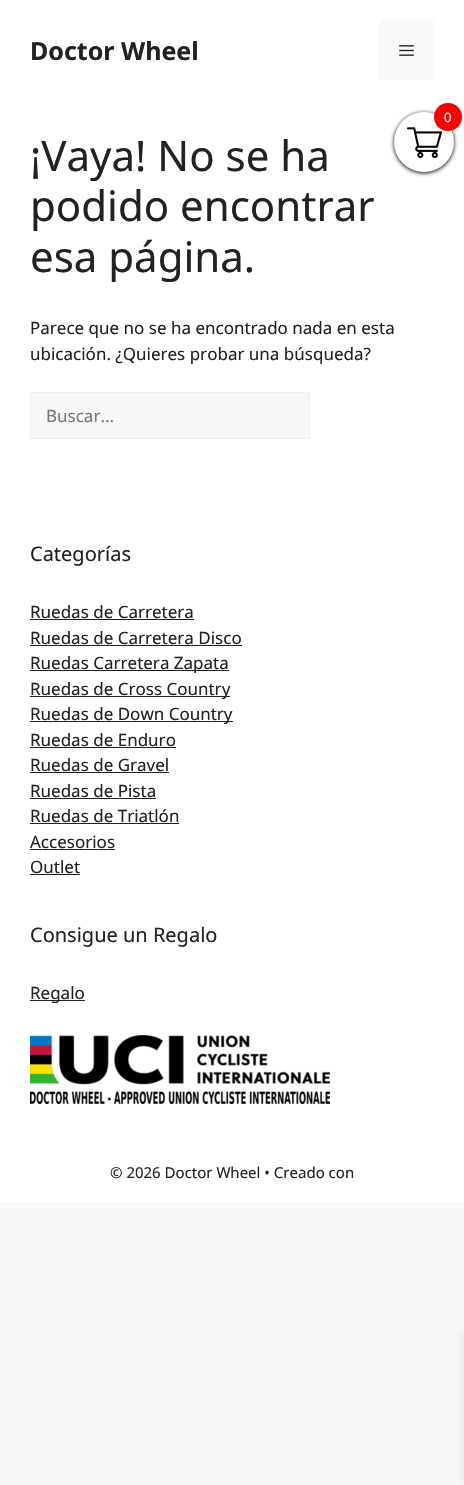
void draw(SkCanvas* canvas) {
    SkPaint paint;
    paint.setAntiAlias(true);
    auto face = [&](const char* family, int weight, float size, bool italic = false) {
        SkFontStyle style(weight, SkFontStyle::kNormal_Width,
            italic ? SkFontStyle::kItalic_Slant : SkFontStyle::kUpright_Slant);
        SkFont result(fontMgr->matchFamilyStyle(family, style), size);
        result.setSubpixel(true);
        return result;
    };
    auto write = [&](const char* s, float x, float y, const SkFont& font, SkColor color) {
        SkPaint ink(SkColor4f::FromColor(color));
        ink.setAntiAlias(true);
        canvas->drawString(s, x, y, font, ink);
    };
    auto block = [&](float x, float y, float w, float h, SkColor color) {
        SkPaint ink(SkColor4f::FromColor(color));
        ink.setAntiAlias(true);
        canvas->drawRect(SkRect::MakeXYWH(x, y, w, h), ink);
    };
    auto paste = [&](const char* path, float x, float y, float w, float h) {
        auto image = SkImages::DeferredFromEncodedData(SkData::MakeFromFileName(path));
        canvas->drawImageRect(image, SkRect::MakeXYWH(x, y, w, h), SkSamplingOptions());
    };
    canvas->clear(SkColorSetRGB(247, 248, 249));
    block(0, 0, 464, 1203, SK_ColorWHITE);
    auto kFont1 = face("Noto Sans", 700, 25);
    write("Doctor Wheel", 30, 60, kFont1, SkColorSetRGB(34, 34, 34));
    block(379, 20, 55, 60, SkColorSetRGB(250, 250, 250));
    paste("pic1.png", 399, 45, 15, 11);
    paint.setColor(SK_ColorBLACK);
    paint.setMaskFilter(SkMaskFilter::MakeBlur(kNormal_SkBlurStyle, 2));
    canvas->drawRoundRect(SkRect::MakeXYWH(394, 113, 60, 60), 30, 30, paint);
    paint.setMaskFilter(nullptr);
    paint.setColor(SK_ColorWHITE);
    canvas->drawCircle(424, 142, 30, paint);
    paste("pic2.png", 407, 127, 35, 32);
    paint.setColor(SkColorSetRGB(255, 0, 0));
    canvas->drawCircle(448, 117, 14, paint);
    auto kFont2 = face("Noto Sans", 400, 13);
    write("0", 444, 122, kFont2, SK_ColorWHITE);
    paint.setColor(SkColorSetARGB(26, 0, 0, 0));
    paint.setMaskFilter(SkMaskFilter::MakeBlur(kNormal_SkBlurStyle, 5));
    canvas->drawRect(SkRect::MakeXYWH(464, 1334, 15, 146), paint);
    paint.setMaskFilter(nullptr);
    auto kFont3 = face("Noto Sans", 400, 42);
    write("¡Vaya! No se ha", 30, 171, kFont3, SkColorSetRGB(34, 34, 34));
    write("podido encontrar", 30, 221, kFont3, SkColorSetRGB(34, 34, 34));
    write("esa página.", 30, 272, kFont3, SkColorSetRGB(34, 34, 34));
    auto kFont4 = face("Noto Sans", 400, 17);
    write("Parece que no se ha encontrado nada en esta", 30, 334, kFont4, SkColorSetRGB(34, 34, 34));
    write("ubicación. ¿Quieres probar una búsqueda?", 30, 360, kFont4, SkColorSetRGB(34, 34, 34));
    paint.setColor(SkColorSetRGB(247, 248, 249));
    canvas->drawRect(SkRect::MakeXYWH(30.5f, 392.5f, 279, 46), paint);
    paint.setStyle(SkPaint::kStroke_Style);
    paint.setStrokeWidth(1);
    paint.setColor(SkColorSetRGB(240, 240, 240));
    canvas->drawRect(SkRect::MakeXYWH(30.5f, 392.5f, 279, 46), paint);
    write("Buscar...", 46, 422, kFont4, SkColorSetRGB(117, 117, 117));
    auto kFont5 = face("Noto Sans", 400, 20);
    write("Categorías", 30, 561, kFont5, SkColorSetRGB(34, 34, 34));
    write("Ruedas de Carretera", 30, 618, kFont4, SkColorSetRGB(34, 34, 34));
    block(30, 619, 164, 1, SkColorSetRGB(34, 34, 34));
    write("Ruedas de Carretera Disco", 30, 644, kFont4, SkColorSetRGB(34, 34, 34));
    block(30, 645, 212, 1, SkColorSetRGB(34, 34, 34));
    block(30, 670, 199, 1, SkColorSetRGB(34, 34, 34));
    write("Ruedas Carretera Zapata", 30, 669, kFont4, SkColorSetRGB(34, 34, 34));
    block(30, 696, 200, 1, SkColorSetRGB(34, 34, 34));
    write("Ruedas de Cross Country", 30, 695, kFont4, SkColorSetRGB(34, 34, 34));
    block(30, 721, 203, 1, SkColorSetRGB(34, 34, 34));
    write("Ruedas de Down Country", 30, 720, kFont4, SkColorSetRGB(34, 34, 34));
    write("Ruedas de Enduro", 30, 746, kFont4, SkColorSetRGB(34, 34, 34));
    block(30, 747, 146, 1, SkColorSetRGB(34, 34, 34));
    write("Ruedas de Gravel", 30, 771, kFont4, SkColorSetRGB(34, 34, 34));
    block(30, 772, 139, 1, SkColorSetRGB(34, 34, 34));
    write("Ruedas de Pista", 30, 797, kFont4, SkColorSetRGB(34, 34, 34));
    block(30, 798, 126, 1, SkColorSetRGB(34, 34, 34));
    write("Ruedas de Triatlón", 30, 822, kFont4, SkColorSetRGB(34, 34, 34));
    block(30, 823, 149, 1, SkColorSetRGB(34, 34, 34));
    write("Accesorios", 30, 848, kFont4, SkColorSetRGB(34, 34, 34));
    block(30, 849, 85, 1, SkColorSetRGB(34, 34, 34));
    write("Outlet", 30, 873, kFont4, SkColorSetRGB(34, 34, 34));
    block(30, 874, 50, 1, SkColorSetRGB(34, 34, 34));
    write("Consigue un Regalo", 30, 942, kFont5, SkColorSetRGB(34, 34, 34));
    block(30, 1000, 55, 1, SkColorSetRGB(34, 34, 34));
    write("Regalo", 30, 999, kFont4, SkColorSetRGB(34, 34, 34));
    paste("pic3.png", 30, 1035, 300, 69);
    auto kFont6 = face("Noto Sans", 400, 15);
    write("© 2026 Doctor Wheel • Creado con", 110, 1178, kFont6, SkColorSetRGB(34, 34, 34));
}
